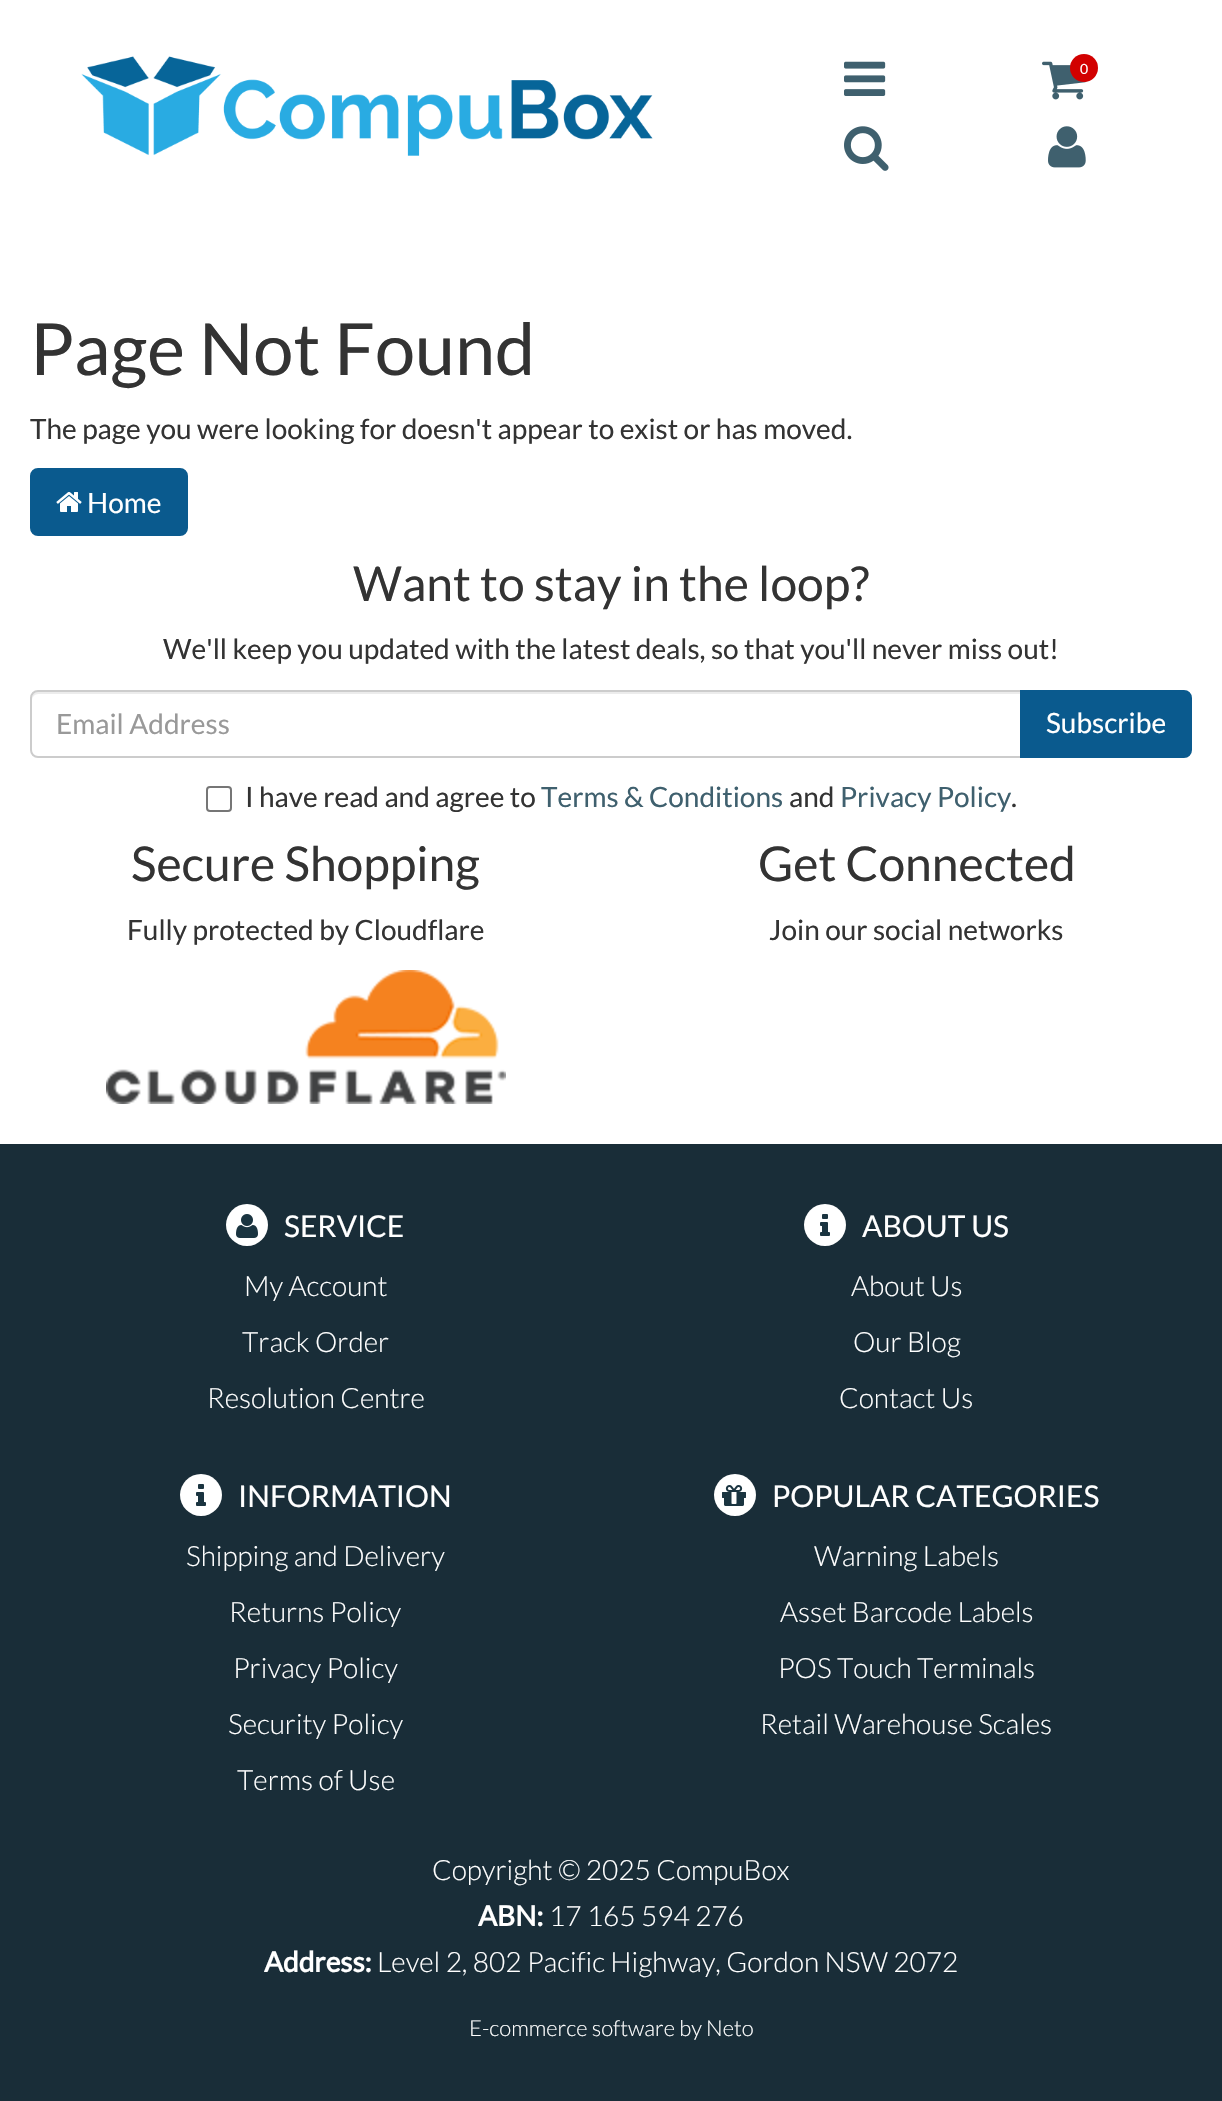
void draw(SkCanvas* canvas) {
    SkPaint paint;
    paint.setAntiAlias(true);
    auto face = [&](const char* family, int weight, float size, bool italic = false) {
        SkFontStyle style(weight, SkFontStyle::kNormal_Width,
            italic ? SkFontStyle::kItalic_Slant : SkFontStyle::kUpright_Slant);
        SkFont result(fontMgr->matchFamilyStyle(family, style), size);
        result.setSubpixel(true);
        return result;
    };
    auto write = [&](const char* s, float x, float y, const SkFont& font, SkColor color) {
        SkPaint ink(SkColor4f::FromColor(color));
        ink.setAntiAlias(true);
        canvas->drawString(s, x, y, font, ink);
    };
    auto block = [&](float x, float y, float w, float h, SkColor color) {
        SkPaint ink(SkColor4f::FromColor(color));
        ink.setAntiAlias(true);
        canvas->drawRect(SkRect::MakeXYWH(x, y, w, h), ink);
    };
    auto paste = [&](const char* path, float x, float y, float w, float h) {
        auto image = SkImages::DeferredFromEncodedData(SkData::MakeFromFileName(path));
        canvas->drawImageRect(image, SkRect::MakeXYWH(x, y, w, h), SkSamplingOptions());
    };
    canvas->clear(SK_ColorWHITE);
    paste("pic1.png", 81, 56, 572, 100);
    paste("pic2.png", 844, 61, 42, 35);
    paste("pic3.png", 1042, 61, 45, 39);
    paint.setColor(SkColorSetRGB(210, 0, 0));
    canvas->drawCircle(1084, 68, 14, paint);
    auto kFont1 = face("Lato", 400, 14);
    write("0", 1080, 74, kFont1, SK_ColorWHITE);
    paste("pic4.png", 844, 126, 45, 45);
    paste("pic5.png", 1048, 126, 38, 42);
    auto kFont2 = face("Lato", 400, 72);
    write("Page Not Found", 30, 375, kFont2, SkColorSetRGB(51, 51, 51));
    auto kFont3 = face("Lato", 400, 28);
    write("The page you were looking for doesn't appear to exist or has moved.", 30, 439, kFont3, SkColorSetRGB(51, 51, 51));
    paint.setColor(SkColorSetRGB(10, 90, 142));
    canvas->drawRoundRect(SkRect::MakeXYWH(31, 469, 156, 66), 7, 7, paint);
    paint.setStyle(SkPaint::kStroke_Style);
    paint.setStrokeWidth(2);
    canvas->drawRoundRect(SkRect::MakeXYWH(31, 469, 156, 66), 7, 7, paint);
    paste("pic6.png", 56, 492, 26, 20);
    write("Home", 87, 513, kFont3, SK_ColorWHITE);
    auto kFont4 = face("Lato", 400, 48);
    write("Want to stay in the loop?", 353, 601, kFont4, SkColorSetRGB(51, 51, 51));
    write("We'll keep you updated with the latest deals, so that you'll never miss out!", 163, 659, kFont3, SkColorSetRGB(51, 51, 51));
    paint.setStyle(SkPaint::kFill_Style);
    paint.setColor(SkColorSetRGB(236, 236, 236));
    canvas->drawPath(SkPathBuilder().moveTo(38, 694).lineTo(1020, 694).lineTo(1020, 692).lineTo(38, 692).cubicTo(33, 692, 32, 696, 32, 700).cubicTo(32, 697, 35, 694, 38, 694).close().detach(), paint);
    paint.setStyle(SkPaint::kStroke_Style);
    paint.setColor(SkColorSetRGB(204, 204, 204));
    canvas->drawPath(SkPathBuilder().moveTo(38, 691).lineTo(1021, 691).lineTo(1021, 757).lineTo(38, 757).cubicTo(34, 757, 31, 754, 31, 750).lineTo(31, 698).cubicTo(31, 694, 34, 691, 38, 691).close().detach(), paint);
    write("Email Address", 56, 734, kFont3, SkColorSetRGB(153, 153, 153));
    paint.setStyle(SkPaint::kFill_Style);
    paint.setColor(SkColorSetRGB(10, 90, 142));
    canvas->drawPath(SkPathBuilder().moveTo(1021, 691).lineTo(1184, 691).cubicTo(1188, 691, 1191, 694, 1191, 698).lineTo(1191, 750).cubicTo(1191, 754, 1188, 757, 1184, 757).lineTo(1021, 757).close().detach(), paint);
    paint.setStyle(SkPaint::kStroke_Style);
    canvas->drawPath(SkPathBuilder().moveTo(1021, 691).lineTo(1184, 691).cubicTo(1188, 691, 1191, 694, 1191, 698).lineTo(1191, 750).cubicTo(1191, 754, 1188, 757, 1184, 757).lineTo(1021, 757).close().detach(), paint);
    write("Subscribe", 1046, 733, kFont3, SK_ColorWHITE);
    paint.setColor(SkColorSetRGB(118, 118, 118));
    canvas->drawRoundRect(SkRect::MakeXYWH(207, 787, 24, 24), 3, 3, paint);
    write("I have read and agree to", 245, 807, kFont3, SkColorSetRGB(51, 51, 51));
    write("Terms & Conditions", 541, 807, kFont3, SkColorSetRGB(63, 96, 110));
    write("and", 789, 807, kFont3, SkColorSetRGB(51, 51, 51));
    write("Privacy Policy", 840, 807, kFont3, SkColorSetRGB(63, 96, 110));
    write(".", 1011, 807, kFont3, SkColorSetRGB(51, 51, 51));
    write("Secure Shopping", 131, 881, kFont4, SkColorSetRGB(51, 51, 51));
    write("Fully protected by Cloudflare", 127, 940, kFont3, SkColorSetRGB(51, 51, 51));
    paste("pic7.png", 106, 970, 400, 134);
    write("Get Connected", 758, 881, kFont4, SkColorSetRGB(51, 51, 51));
    write("Join our social networks", 769, 940, kFont3, SkColorSetRGB(51, 51, 51));
    block(0, 1144, 1222, 957, SkColorSetRGB(25, 45, 56));
    paint.setStyle(SkPaint::kFill_Style);
    paint.setColor(SK_ColorWHITE);
    canvas->drawCircle(247, 1225, 21, paint);
    paste("pic8.png", 236, 1214, 22, 24);
    auto kFont5 = face("Lato", 400, 30);
    write("SERVICE", 284, 1237, kFont5, SK_ColorWHITE);
    auto kFont6 = face("Lato", 300, 28);
    write("My Account", 244, 1296, kFont6, SK_ColorWHITE);
    write("Track Order", 242, 1352, kFont6, SK_ColorWHITE);
    write("Resolution Centre", 207, 1408, kFont6, SK_ColorWHITE);
    canvas->drawCircle(825, 1225, 21, paint);
    paste("pic9.png", 820, 1214, 10, 22);
    write("ABOUT US", 862, 1237, kFont5, SK_ColorWHITE);
    write("About Us", 851, 1296, kFont6, SK_ColorWHITE);
    write("Our Blog", 853, 1352, kFont6, SK_ColorWHITE);
    write("Contact Us", 839, 1408, kFont6, SK_ColorWHITE);
    canvas->drawCircle(201, 1495, 21, paint);
    paste("pic9.png", 196, 1484, 10, 22);
    write("INFORMATION", 238, 1507, kFont5, SK_ColorWHITE);
    write("Shipping and Delivery", 186, 1566, kFont6, SK_ColorWHITE);
    write("Returns Policy", 229, 1622, kFont6, SK_ColorWHITE);
    write("Privacy Policy", 233, 1678, kFont6, SK_ColorWHITE);
    write("Security Policy", 228, 1734, kFont6, SK_ColorWHITE);
    write("Terms of Use", 237, 1790, kFont6, SK_ColorWHITE);
    canvas->drawCircle(735, 1495, 21, paint);
    paste("pic10.png", 722, 1485, 24, 21);
    write("POPULAR CATEGORIES", 772, 1507, kFont5, SK_ColorWHITE);
    write("Warning Labels", 814, 1566, kFont6, SK_ColorWHITE);
    write("Asset Barcode Labels", 780, 1622, kFont6, SK_ColorWHITE);
    write("POS Touch Terminals", 778, 1678, kFont6, SK_ColorWHITE);
    write("Retail Warehouse Scales", 760, 1734, kFont6, SK_ColorWHITE);
    write("Copyright © 2025 CompuBox", 432, 1880, kFont6, SK_ColorWHITE);
    auto kFont7 = face("Lato", 700, 28);
    write("ABN:", 478, 1926, kFont7, SK_ColorWHITE);
    write("17 165 594 276", 549, 1926, kFont6, SK_ColorWHITE);
    write("Address:", 264, 1972, kFont7, SK_ColorWHITE);
    write("Level 2, 802 Pacific Highway, Gordon NSW 2072", 377, 1972, kFont6, SK_ColorWHITE);
    auto kFont8 = face("Lato", 300, 22);
    write("E-commerce software by Neto", 469, 2036, kFont8, SK_ColorWHITE);
}
